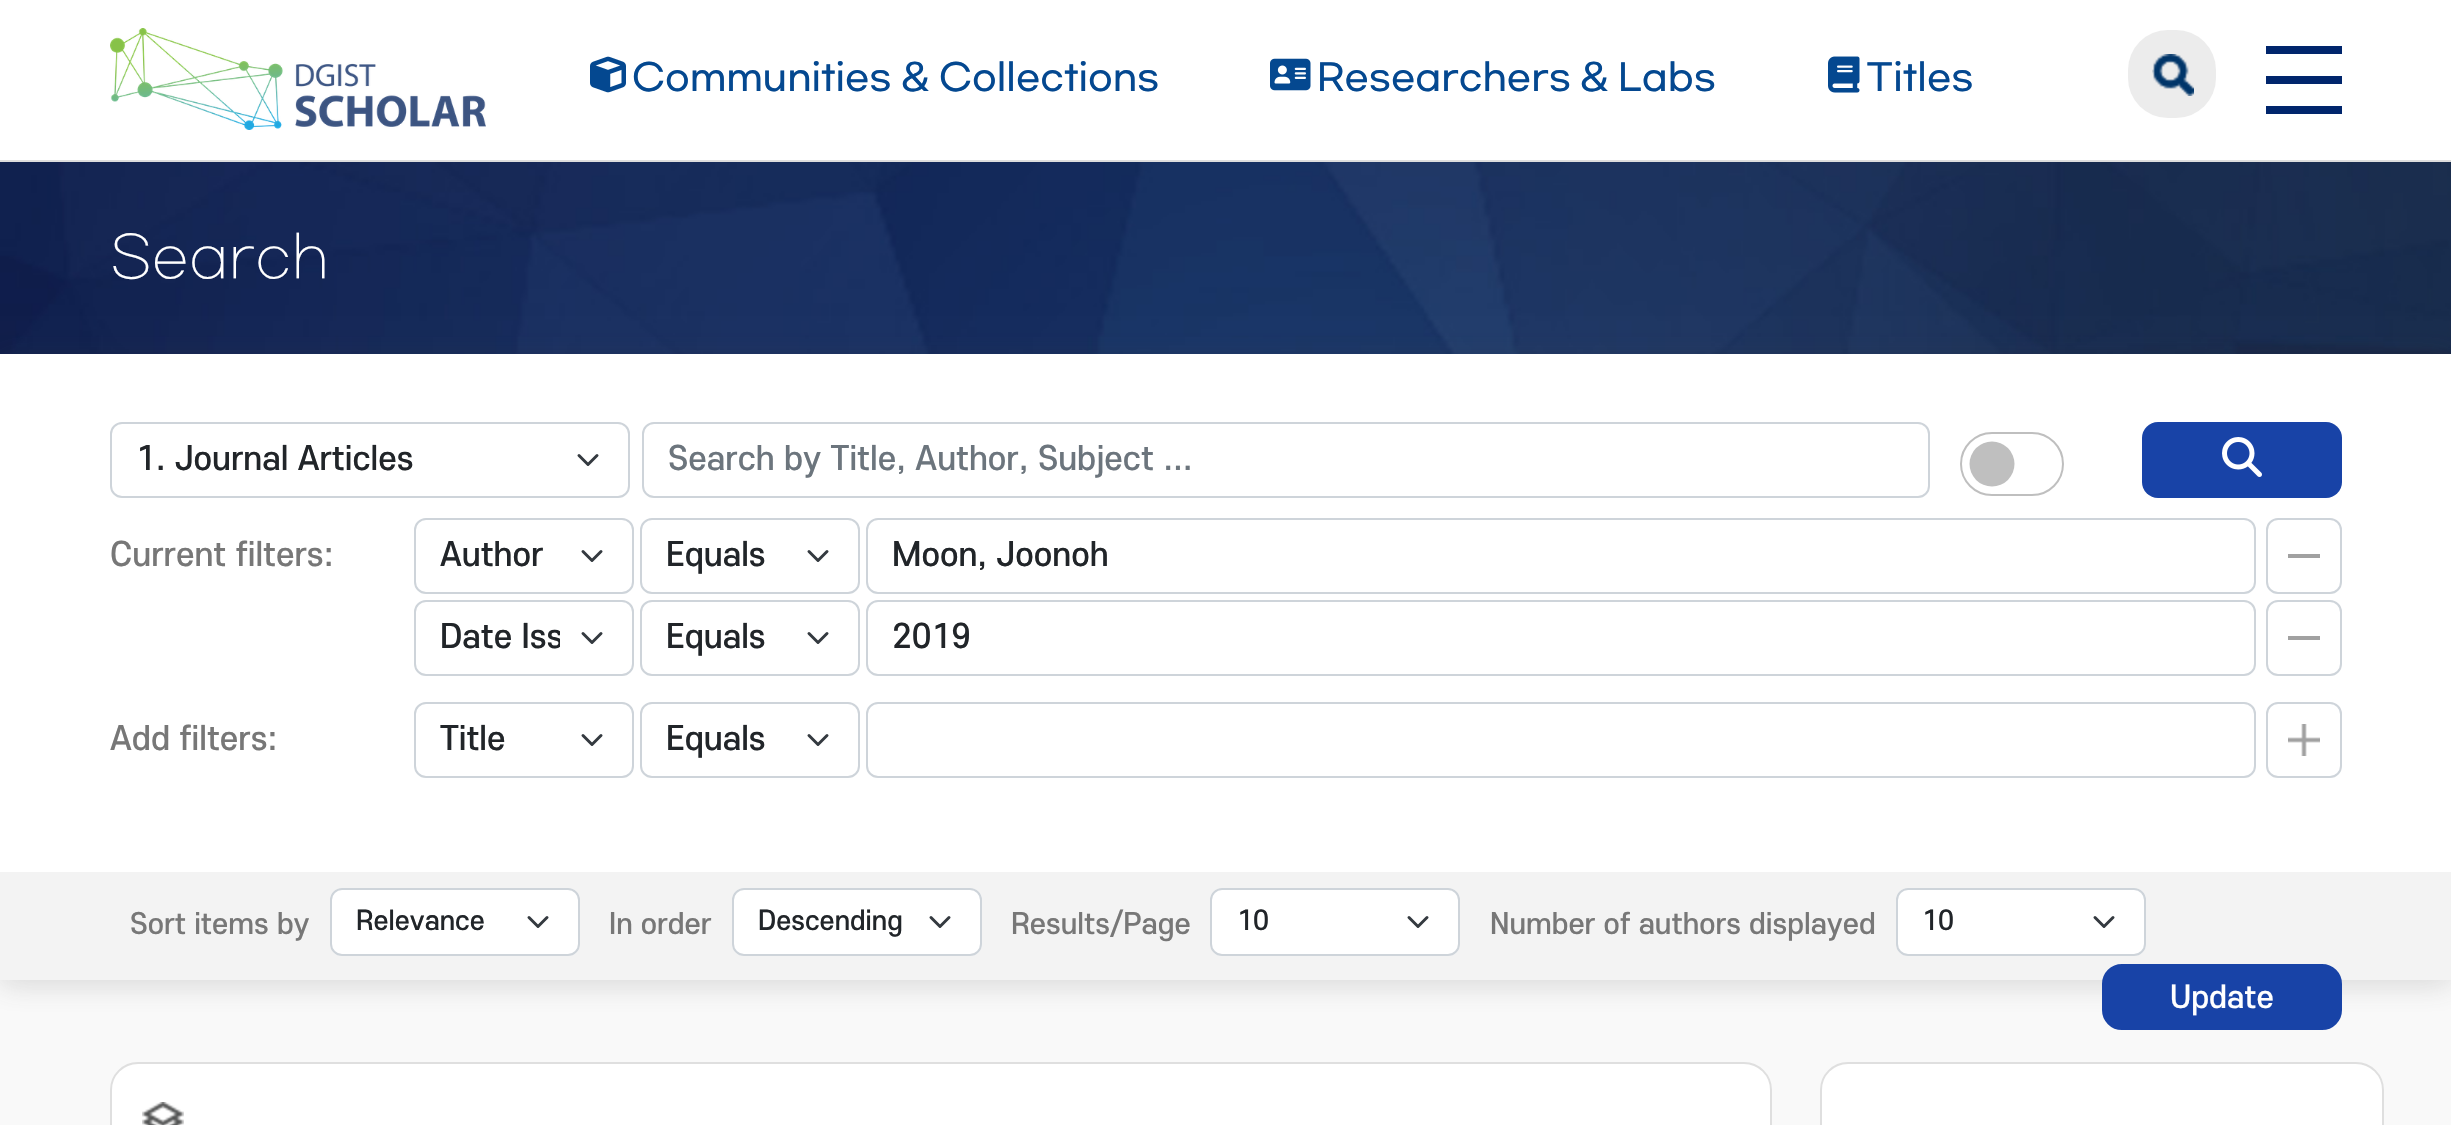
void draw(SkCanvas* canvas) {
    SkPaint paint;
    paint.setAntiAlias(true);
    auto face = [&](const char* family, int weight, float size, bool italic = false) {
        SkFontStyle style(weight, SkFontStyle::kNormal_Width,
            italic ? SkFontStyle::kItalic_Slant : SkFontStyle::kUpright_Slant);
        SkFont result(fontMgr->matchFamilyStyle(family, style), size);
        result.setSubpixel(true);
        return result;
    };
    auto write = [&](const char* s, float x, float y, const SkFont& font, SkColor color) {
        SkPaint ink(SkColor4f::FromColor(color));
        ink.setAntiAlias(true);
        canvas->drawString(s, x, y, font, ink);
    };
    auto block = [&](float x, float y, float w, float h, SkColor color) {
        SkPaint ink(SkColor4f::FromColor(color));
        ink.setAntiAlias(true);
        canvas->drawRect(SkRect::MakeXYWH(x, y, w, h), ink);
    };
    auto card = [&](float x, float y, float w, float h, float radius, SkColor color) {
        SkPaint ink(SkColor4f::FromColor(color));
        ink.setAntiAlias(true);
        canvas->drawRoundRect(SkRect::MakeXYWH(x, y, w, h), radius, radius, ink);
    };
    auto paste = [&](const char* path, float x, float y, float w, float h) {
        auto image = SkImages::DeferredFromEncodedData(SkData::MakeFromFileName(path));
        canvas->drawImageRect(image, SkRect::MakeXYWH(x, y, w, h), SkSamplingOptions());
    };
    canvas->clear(SkColorSetRGB(249, 249, 249));
    block(0, 0, 2451, 160, SK_ColorWHITE);
    block(0, 160, 2451, 2, SkColorSetRGB(221, 221, 221));
    paste("pic1.png", 110, 28, 376, 102);
    paste("pic2.png", 590, 56, 36, 37);
    auto kFont1 = face("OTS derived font", 500, 36);
    write("Communities", 632, 88, kFont1, SkColorSetRGB(4, 72, 144));
    write("&", 901, 88, kFont1, SkColorSetRGB(4, 72, 144));
    write("Collections", 939, 88, kFont1, SkColorSetRGB(4, 72, 144));
    paste("pic3.png", 1270, 58, 41, 33);
    write("Researchers", 1317, 88, kFont1, SkColorSetRGB(4, 72, 144));
    write("&", 1580, 88, kFont1, SkColorSetRGB(4, 72, 144));
    write("Labs", 1618, 88, kFont1, SkColorSetRGB(4, 72, 144));
    paste("pic4.png", 1828, 56, 32, 37);
    write("Titles", 1866, 88, kFont1, SkColorSetRGB(4, 72, 144));
    card(2128, 30, 88, 88, 40, SkColorSetRGB(236, 236, 236));
    paste("pic5.png", 2152, 54, 42, 42);
    block(2266, 46, 76, 8, SkColorSetRGB(0, 37, 108));
    block(2266, 76, 76, 8, SkColorSetRGB(0, 37, 108));
    block(2266, 106, 76, 8, SkColorSetRGB(0, 37, 108));
    paste("pic6.png", 0, 162, 2451, 192);
    auto kFont2 = face("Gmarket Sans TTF", 300, 56);
    write("Search", 110, 274, kFont2, SK_ColorWHITE);
    paint.setColor(SkColorSetARGB(51, 72, 72, 72));
    paint.setMaskFilter(SkMaskFilter::MakeBlur(kNormal_SkBlurStyle, 14));
    canvas->drawRect(SkRect::MakeXYWH(0, 358, 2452, 626), paint);
    paint.setMaskFilter(nullptr);
    block(0, 354, 2451, 518, SK_ColorWHITE);
    paint.setStyle(SkPaint::kStroke_Style);
    paint.setStrokeWidth(3);
    paint.setStrokeCap(SkPaint::kRound_Cap);
    paint.setStrokeJoin(SkPaint::kRound_Join);
    paint.setColor(SkColorSetRGB(52, 58, 64));
    canvas->drawPath(SkPathBuilder().moveTo(579, 455.5f).lineTo(588, 464.5f).lineTo(597, 455.5f).detach(), paint);
    paint.setStrokeWidth(2);
    paint.setStrokeCap(SkPaint::kButt_Cap);
    paint.setStrokeJoin(SkPaint::kMiter_Join);
    paint.setColor(SkColorSetRGB(206, 212, 218));
    canvas->drawRoundRect(SkRect::MakeXYWH(111, 423, 518, 74), 11, 11, paint);
    auto kFont3 = face("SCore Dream", 500, 32);
    write("1. Journal Articles", 136, 470, kFont3, SkColorSetRGB(33, 37, 41));
    canvas->drawRoundRect(SkRect::MakeXYWH(643, 423, 1286, 74), 11, 11, paint);
    write("Search by Title, Author, Subject ...", 668, 470, kFont3, SkColorSetRGB(108, 117, 125));
    paint.setStyle(SkPaint::kFill_Style);
    paint.setColor(SkColorSetRGB(191, 191, 191));
    canvas->drawCircle(1992, 464, 22.5f, paint);
    paint.setStyle(SkPaint::kStroke_Style);
    canvas->drawRoundRect(SkRect::MakeXYWH(1961, 433, 102, 62), 31, 31, paint);
    card(2142, 422, 200, 76, 16, SkColorSetRGB(24, 67, 167));
    paste("pic7.png", 2222, 437, 40, 40);
    write("Current filters:", 110, 566, kFont3, SkColorSetRGB(119, 119, 119));
    paint.setStrokeWidth(3);
    paint.setStrokeCap(SkPaint::kRound_Cap);
    paint.setStrokeJoin(SkPaint::kRound_Join);
    paint.setColor(SkColorSetRGB(52, 58, 64));
    canvas->drawPath(SkPathBuilder().moveTo(583, 551.5f).lineTo(592, 560.5f).lineTo(601, 551.5f).detach(), paint);
    paint.setStrokeWidth(2);
    paint.setStrokeCap(SkPaint::kButt_Cap);
    paint.setStrokeJoin(SkPaint::kMiter_Join);
    paint.setColor(SkColorSetRGB(206, 212, 218));
    canvas->drawRoundRect(SkRect::MakeXYWH(415, 519, 218, 74), 11, 11, paint);
    write("Author", 440, 566, kFont3, SkColorSetRGB(33, 37, 41));
    paint.setStrokeWidth(3);
    paint.setStrokeCap(SkPaint::kRound_Cap);
    paint.setStrokeJoin(SkPaint::kRound_Join);
    paint.setColor(SkColorSetRGB(52, 58, 64));
    canvas->drawPath(SkPathBuilder().moveTo(809, 551.5f).lineTo(818, 560.5f).lineTo(827, 551.5f).detach(), paint);
    paint.setStrokeWidth(2);
    paint.setStrokeCap(SkPaint::kButt_Cap);
    paint.setStrokeJoin(SkPaint::kMiter_Join);
    paint.setColor(SkColorSetRGB(206, 212, 218));
    canvas->drawRoundRect(SkRect::MakeXYWH(641, 519, 218, 74), 11, 11, paint);
    write("Equals", 666, 566, kFont3, SkColorSetRGB(33, 37, 41));
    canvas->drawRoundRect(SkRect::MakeXYWH(867, 519, 1388, 74), 11, 11, paint);
    write("Moon, Joonoh", 892, 566, kFont3, SkColorSetRGB(33, 37, 41));
    block(2288, 554, 32, 4, SkColorSetRGB(161, 161, 161));
    canvas->drawRoundRect(SkRect::MakeXYWH(2267, 519, 74, 74), 11, 11, paint);
    paint.setStrokeWidth(3);
    paint.setStrokeCap(SkPaint::kRound_Cap);
    paint.setStrokeJoin(SkPaint::kRound_Join);
    paint.setColor(SkColorSetRGB(52, 58, 64));
    canvas->drawPath(SkPathBuilder().moveTo(583, 633.5f).lineTo(592, 642.5f).lineTo(601, 633.5f).detach(), paint);
    paint.setStrokeWidth(2);
    paint.setStrokeCap(SkPaint::kButt_Cap);
    paint.setStrokeJoin(SkPaint::kMiter_Join);
    paint.setColor(SkColorSetRGB(206, 212, 218));
    canvas->drawRoundRect(SkRect::MakeXYWH(415, 601, 218, 74), 11, 11, paint);
    canvas->save();
    canvas->clipRect(SkRect::MakeXYWH(440, 614, 120, 48));
    write("Date Iss", 440, 648, kFont3, SkColorSetRGB(33, 37, 41));
    canvas->restore();
    paint.setStrokeWidth(3);
    paint.setStrokeCap(SkPaint::kRound_Cap);
    paint.setStrokeJoin(SkPaint::kRound_Join);
    paint.setColor(SkColorSetRGB(52, 58, 64));
    canvas->drawPath(SkPathBuilder().moveTo(809, 633.5f).lineTo(818, 642.5f).lineTo(827, 633.5f).detach(), paint);
    paint.setStrokeWidth(2);
    paint.setStrokeCap(SkPaint::kButt_Cap);
    paint.setStrokeJoin(SkPaint::kMiter_Join);
    paint.setColor(SkColorSetRGB(206, 212, 218));
    canvas->drawRoundRect(SkRect::MakeXYWH(641, 601, 218, 74), 11, 11, paint);
    write("Equals", 666, 648, kFont3, SkColorSetRGB(33, 37, 41));
    canvas->drawRoundRect(SkRect::MakeXYWH(867, 601, 1388, 74), 11, 11, paint);
    write("2019", 892, 648, kFont3, SkColorSetRGB(33, 37, 41));
    block(2288, 636, 32, 4, SkColorSetRGB(161, 161, 161));
    canvas->drawRoundRect(SkRect::MakeXYWH(2267, 601, 74, 74), 11, 11, paint);
    write("Add filters:", 110, 750, kFont3, SkColorSetRGB(119, 119, 119));
    paint.setStrokeWidth(3);
    paint.setStrokeCap(SkPaint::kRound_Cap);
    paint.setStrokeJoin(SkPaint::kRound_Join);
    paint.setColor(SkColorSetRGB(52, 58, 64));
    canvas->drawPath(SkPathBuilder().moveTo(583, 735.5f).lineTo(592, 744.5f).lineTo(601, 735.5f).detach(), paint);
    paint.setStrokeWidth(2);
    paint.setStrokeCap(SkPaint::kButt_Cap);
    paint.setStrokeJoin(SkPaint::kMiter_Join);
    paint.setColor(SkColorSetRGB(206, 212, 218));
    canvas->drawRoundRect(SkRect::MakeXYWH(415, 703, 218, 74), 11, 11, paint);
    write("Title", 440, 750, kFont3, SkColorSetRGB(33, 37, 41));
    paint.setStrokeWidth(3);
    paint.setStrokeCap(SkPaint::kRound_Cap);
    paint.setStrokeJoin(SkPaint::kRound_Join);
    paint.setColor(SkColorSetRGB(52, 58, 64));
    canvas->drawPath(SkPathBuilder().moveTo(809, 735.5f).lineTo(818, 744.5f).lineTo(827, 735.5f).detach(), paint);
    paint.setStrokeWidth(2);
    paint.setStrokeCap(SkPaint::kButt_Cap);
    paint.setStrokeJoin(SkPaint::kMiter_Join);
    paint.setColor(SkColorSetRGB(206, 212, 218));
    canvas->drawRoundRect(SkRect::MakeXYWH(641, 703, 218, 74), 11, 11, paint);
    write("Equals", 666, 750, kFont3, SkColorSetRGB(33, 37, 41));
    canvas->drawRoundRect(SkRect::MakeXYWH(867, 703, 1388, 74), 11, 11, paint);
    paste("pic8.png", 2288, 724, 32, 32);
    canvas->drawRoundRect(SkRect::MakeXYWH(2267, 703, 74, 74), 11, 11, paint);
    block(0, 872, 2451, 108, SkColorSetRGB(243, 243, 243));
    auto kFont4 = face("SCore Dream", 500, 28);
    write("Sort items by", 130, 934, kFont4, SkColorSetRGB(119, 119, 119));
    card(330, 888, 250, 68, 12, SK_ColorWHITE);
    paint.setStrokeWidth(3);
    paint.setStrokeCap(SkPaint::kRound_Cap);
    paint.setStrokeJoin(SkPaint::kRound_Join);
    paint.setColor(SkColorSetRGB(52, 58, 64));
    canvas->drawPath(SkPathBuilder().moveTo(529, 917.5f).lineTo(538, 926.5f).lineTo(547, 917.5f).detach(), paint);
    paint.setStrokeWidth(2);
    paint.setStrokeCap(SkPaint::kButt_Cap);
    paint.setStrokeJoin(SkPaint::kMiter_Join);
    paint.setColor(SkColorSetRGB(206, 212, 218));
    canvas->drawRoundRect(SkRect::MakeXYWH(331, 889, 248, 66), 11, 11, paint);
    auto kFont5 = face("SCore Dream", 500, 26);
    write("Relevance", 356, 930, kFont5, SkColorSetRGB(33, 37, 41));
    write("In order", 609, 934, kFont4, SkColorSetRGB(119, 119, 119));
    card(732, 888, 250, 68, 12, SK_ColorWHITE);
    paint.setStrokeWidth(3);
    paint.setStrokeCap(SkPaint::kRound_Cap);
    paint.setStrokeJoin(SkPaint::kRound_Join);
    paint.setColor(SkColorSetRGB(52, 58, 64));
    canvas->drawPath(SkPathBuilder().moveTo(931, 917.5f).lineTo(940, 926.5f).lineTo(949, 917.5f).detach(), paint);
    paint.setStrokeWidth(2);
    paint.setStrokeCap(SkPaint::kButt_Cap);
    paint.setStrokeJoin(SkPaint::kMiter_Join);
    paint.setColor(SkColorSetRGB(206, 212, 218));
    canvas->drawRoundRect(SkRect::MakeXYWH(733, 889, 248, 66), 11, 11, paint);
    write("Descending", 758, 930, kFont5, SkColorSetRGB(33, 37, 41));
    write("Results/Page", 1011, 934, kFont4, SkColorSetRGB(119, 119, 119));
    card(1210, 888, 250, 68, 12, SK_ColorWHITE);
    paint.setStrokeWidth(3);
    paint.setStrokeCap(SkPaint::kRound_Cap);
    paint.setStrokeJoin(SkPaint::kRound_Join);
    paint.setColor(SkColorSetRGB(52, 58, 64));
    canvas->drawPath(SkPathBuilder().moveTo(1409, 917.5f).lineTo(1418, 926.5f).lineTo(1427, 917.5f).detach(), paint);
    paint.setStrokeWidth(2);
    paint.setStrokeCap(SkPaint::kButt_Cap);
    paint.setStrokeJoin(SkPaint::kMiter_Join);
    paint.setColor(SkColorSetRGB(206, 212, 218));
    canvas->drawRoundRect(SkRect::MakeXYWH(1211, 889, 248, 66), 11, 11, paint);
    write("10", 1237, 930, kFont5, SkColorSetRGB(33, 37, 41));
    write("Number of authors displayed", 1490, 934, kFont4, SkColorSetRGB(119, 119, 119));
    card(1896, 888, 250, 68, 12, SK_ColorWHITE);
    paint.setStrokeWidth(3);
    paint.setStrokeCap(SkPaint::kRound_Cap);
    paint.setStrokeJoin(SkPaint::kRound_Join);
    paint.setColor(SkColorSetRGB(52, 58, 64));
    canvas->drawPath(SkPathBuilder().moveTo(2095, 917.5f).lineTo(2104, 926.5f).lineTo(2113, 917.5f).detach(), paint);
    paint.setStrokeWidth(2);
    paint.setStrokeCap(SkPaint::kButt_Cap);
    paint.setStrokeJoin(SkPaint::kMiter_Join);
    paint.setColor(SkColorSetRGB(206, 212, 218));
    canvas->drawRoundRect(SkRect::MakeXYWH(1897, 889, 248, 66), 11, 11, paint);
    write("10", 1922, 930, kFont5, SkColorSetRGB(33, 37, 41));
    paint.setStyle(SkPaint::kFill_Style);
    paint.setColor(SkColorSetRGB(24, 67, 167));
    canvas->drawRoundRect(SkRect::MakeXYWH(2103, 965, 238, 64), 19, 19, paint);
    paint.setStyle(SkPaint::kStroke_Style);
    canvas->drawRoundRect(SkRect::MakeXYWH(2103, 965, 238, 64), 19, 19, paint);
    auto kFont6 = face("SCore Dream", 500, 30);
    write("Update", 2170, 1008, kFont6, SK_ColorWHITE);
    paint.setStyle(SkPaint::kFill_Style);
    paint.setColor(SK_ColorWHITE);
    canvas->drawRoundRect(SkRect::MakeXYWH(111, 1063, 1660, 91), 27, 27, paint);
    paint.setStyle(SkPaint::kStroke_Style);
    paint.setColor(SkColorSetRGB(223, 223, 223));
    canvas->drawRoundRect(SkRect::MakeXYWH(111, 1063, 1660, 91), 27, 27, paint);
    paste("pic9.png", 142, 1102, 42, 23);
    paint.setStyle(SkPaint::kFill_Style);
    paint.setColor(SK_ColorWHITE);
    canvas->drawRoundRect(SkRect::MakeXYWH(1821, 1063, 562, 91), 27, 27, paint);
    paint.setStyle(SkPaint::kStroke_Style);
    paint.setColor(SkColorSetRGB(223, 223, 223));
    canvas->drawRoundRect(SkRect::MakeXYWH(1821, 1063, 562, 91), 27, 27, paint);
}
